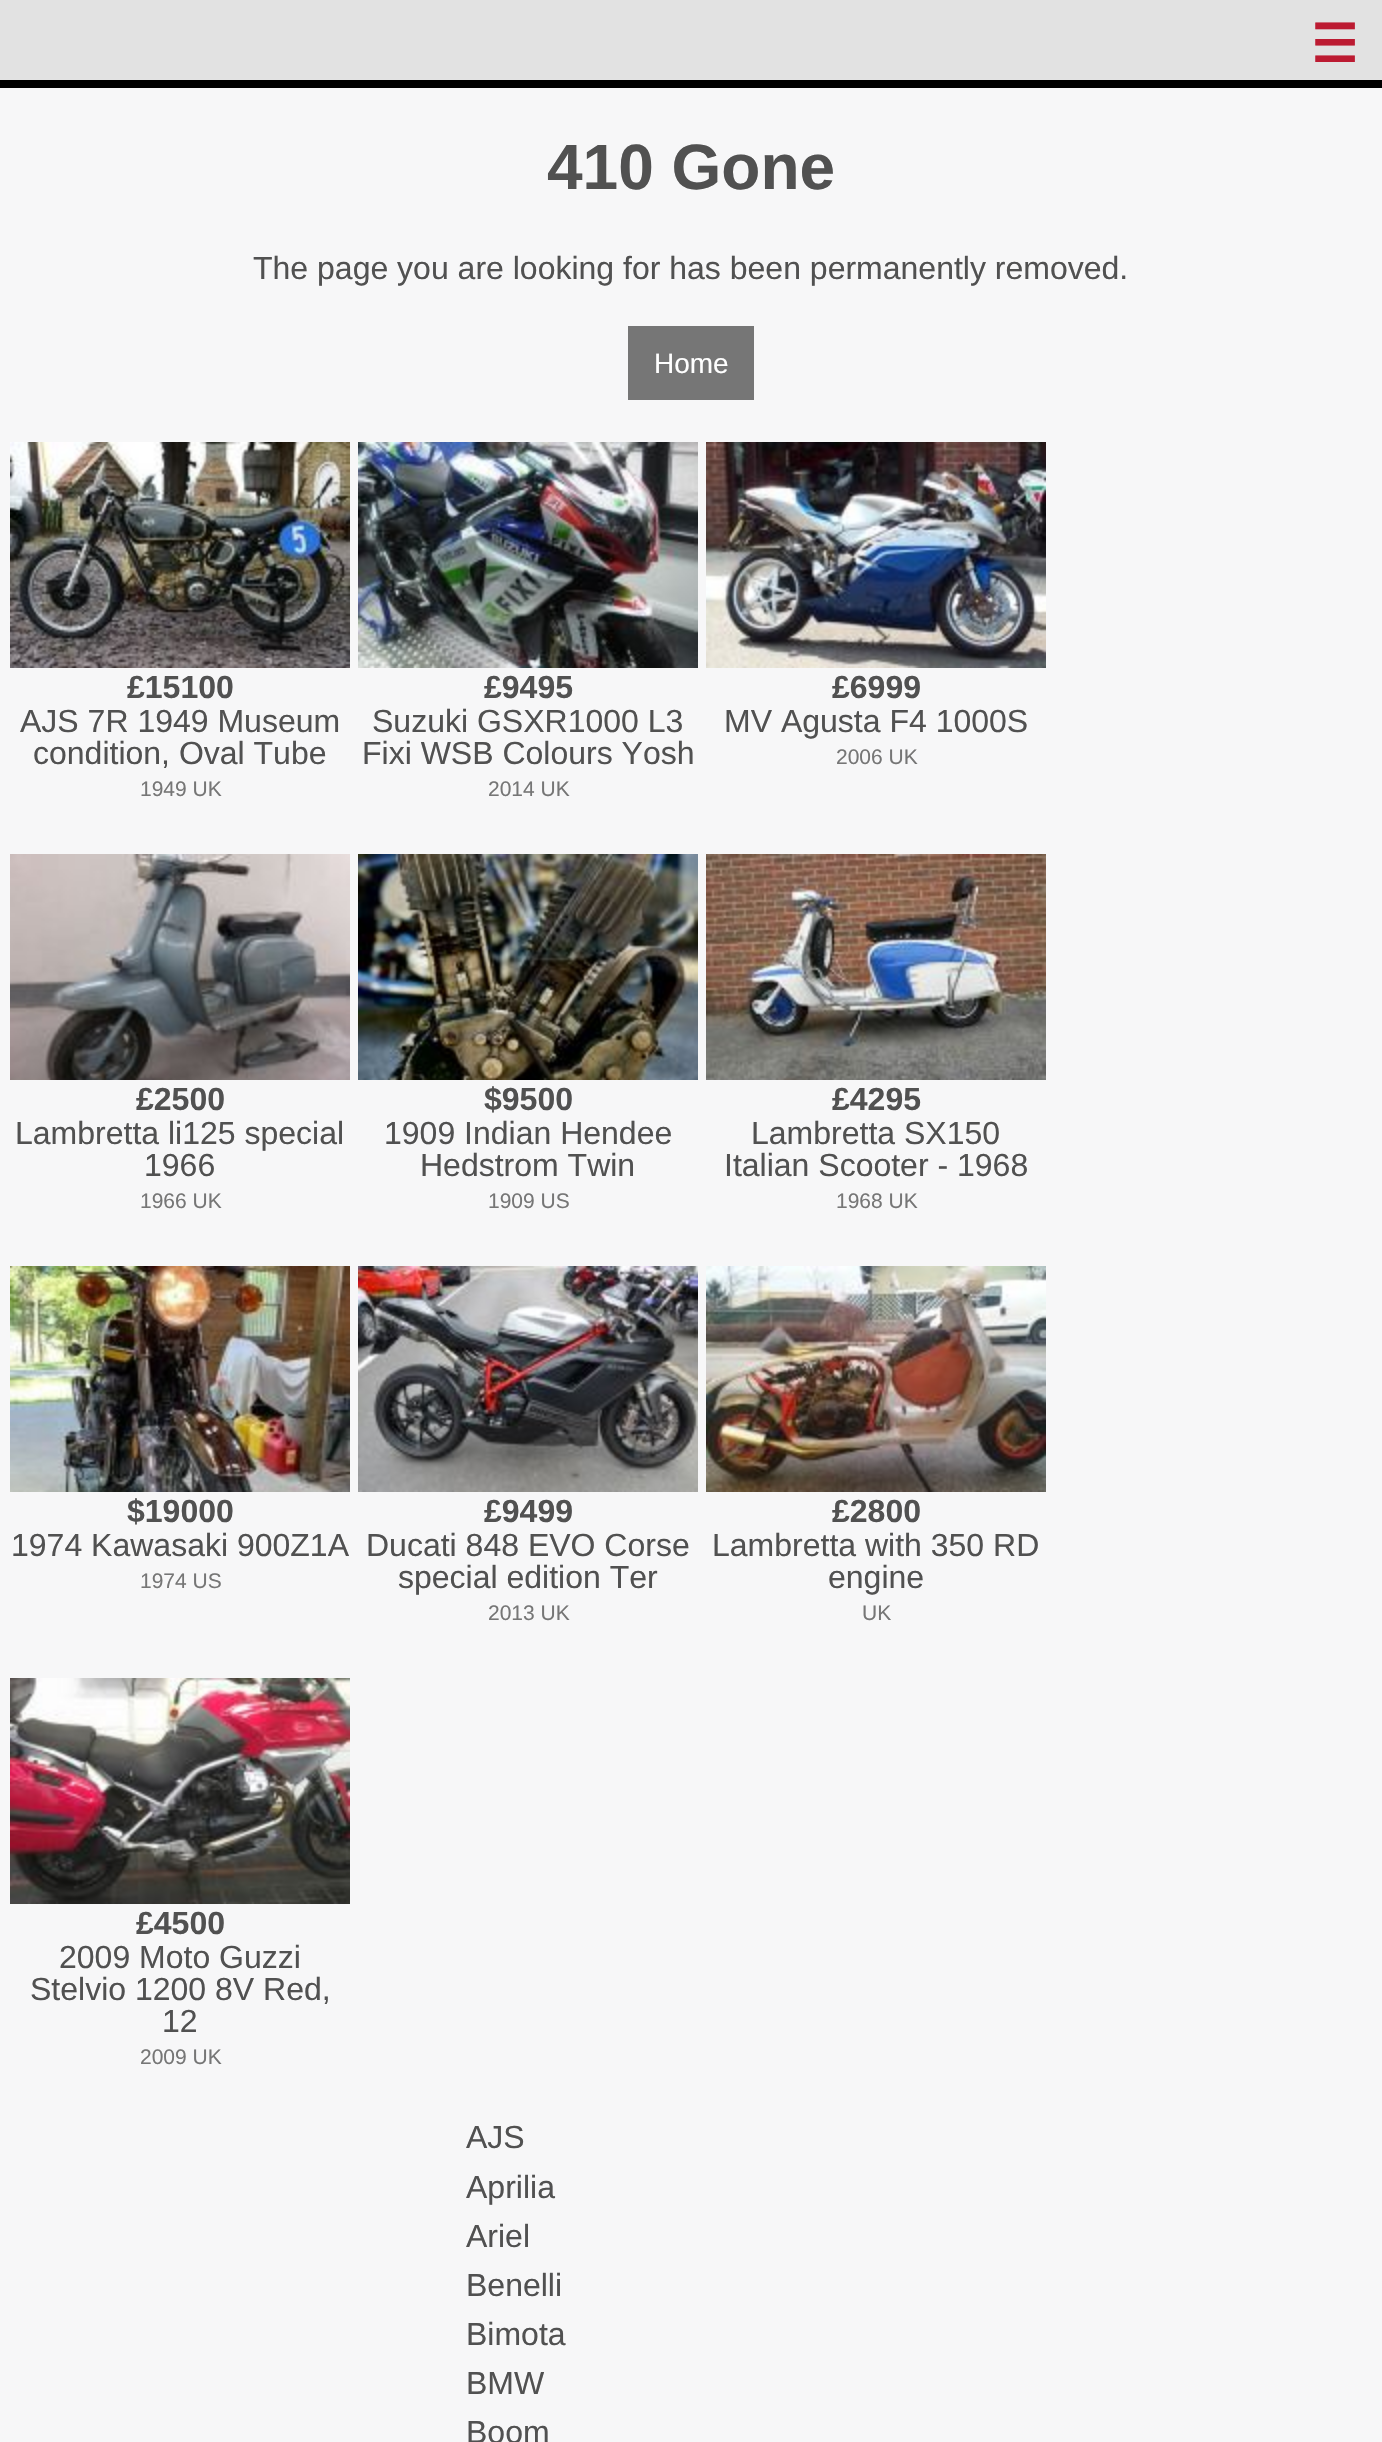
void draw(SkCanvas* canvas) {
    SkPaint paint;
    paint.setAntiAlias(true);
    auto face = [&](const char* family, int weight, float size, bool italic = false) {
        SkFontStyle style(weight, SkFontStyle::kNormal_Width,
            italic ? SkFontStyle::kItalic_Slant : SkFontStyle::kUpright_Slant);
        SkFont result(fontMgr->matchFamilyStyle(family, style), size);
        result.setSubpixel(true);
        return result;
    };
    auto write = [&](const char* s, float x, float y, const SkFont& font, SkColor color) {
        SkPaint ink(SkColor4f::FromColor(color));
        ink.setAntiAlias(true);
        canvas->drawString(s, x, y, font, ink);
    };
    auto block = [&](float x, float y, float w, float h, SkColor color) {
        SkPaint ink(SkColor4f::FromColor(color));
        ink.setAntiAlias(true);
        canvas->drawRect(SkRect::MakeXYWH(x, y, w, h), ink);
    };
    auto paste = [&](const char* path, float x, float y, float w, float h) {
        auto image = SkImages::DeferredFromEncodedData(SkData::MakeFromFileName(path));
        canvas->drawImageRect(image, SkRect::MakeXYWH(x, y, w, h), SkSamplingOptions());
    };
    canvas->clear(SkColorSetRGB(247, 247, 248));
    block(0, 0, 1382, 80, SkColorSetRGB(226, 226, 226));
    block(0, 80, 1382, 8, SK_ColorBLACK);
    auto kFont1 = face("DejaVu Sans", 700, 52);
    write("☰", 1311, 62, kFont1, SkColorSetRGB(188, 27, 50));
    auto kFont2 = face("Liberation Sans", 700, 64);
    write("410 Gone", 547, 189, kFont2, SkColorSetRGB(81, 81, 81));
    auto kFont3 = face("Liberation Sans", 400, 32);
    write("The page you are looking for has been permanently removed.", 253, 279, kFont3, SkColorSetRGB(81, 81, 81));
    block(628, 326, 126, 74, SkColorSetRGB(118, 118, 118));
    auto kFont4 = face("Liberation Sans", 400, 28);
    write("Home", 654, 373, kFont4, SK_ColorWHITE);
    paste("pic1.png", 10, 442, 340, 226);
    auto kFont5 = face("Liberation Sans", 700, 32);
    write("£15100", 127, 698, kFont5, SkColorSetRGB(81, 81, 81));
    write("AJS 7R 1949 Museum", 20, 732, kFont3, SkColorSetRGB(81, 81, 81));
    write("condition, Oval Tube", 33, 764, kFont3, SkColorSetRGB(81, 81, 81));
    auto kFont6 = face("Liberation Sans", 400, 21);
    write("1949 UK", 140, 796, kFont6, SkColorSetRGB(118, 118, 118));
    paste("pic2.png", 358, 442, 340, 226);
    write("£9495", 484, 698, kFont5, SkColorSetRGB(81, 81, 81));
    write("Suzuki GSXR1000 L3", 372, 732, kFont3, SkColorSetRGB(81, 81, 81));
    write("Fixi WSB Colours Yosh", 362, 764, kFont3, SkColorSetRGB(81, 81, 81));
    write("2014 UK", 488, 796, kFont6, SkColorSetRGB(118, 118, 118));
    paste("pic3.png", 706, 442, 340, 226);
    write("£6999", 832, 698, kFont5, SkColorSetRGB(81, 81, 81));
    write("MV Agusta F4 1000S", 724, 732, kFont3, SkColorSetRGB(81, 81, 81));
    write("2006 UK", 836, 764, kFont6, SkColorSetRGB(118, 118, 118));
    paste("pic4.png", 10, 854, 340, 226);
    write("£2500", 136, 1110, kFont5, SkColorSetRGB(81, 81, 81));
    write("Lambretta li125 special", 15, 1144, kFont3, SkColorSetRGB(81, 81, 81));
    write("1966", 144, 1176, kFont3, SkColorSetRGB(81, 81, 81));
    write("1966 UK", 140, 1208, kFont6, SkColorSetRGB(118, 118, 118));
    paste("pic5.png", 358, 854, 340, 226);
    write("$9500", 484, 1110, kFont5, SkColorSetRGB(81, 81, 81));
    write("1909 Indian Hendee", 384, 1144, kFont3, SkColorSetRGB(81, 81, 81));
    write("Hedstrom Twin", 420, 1176, kFont3, SkColorSetRGB(81, 81, 81));
    write("1909 US", 488, 1208, kFont6, SkColorSetRGB(118, 118, 118));
    paste("pic6.png", 706, 854, 340, 226);
    write("£4295", 832, 1110, kFont5, SkColorSetRGB(81, 81, 81));
    write("Lambretta SX150", 751, 1144, kFont3, SkColorSetRGB(81, 81, 81));
    write("Italian Scooter - 1968", 724, 1176, kFont3, SkColorSetRGB(81, 81, 81));
    write("1968 UK", 836, 1208, kFont6, SkColorSetRGB(118, 118, 118));
    paste("pic7.png", 10, 1266, 340, 226);
    write("$19000", 127, 1522, kFont5, SkColorSetRGB(81, 81, 81));
    write("1974 Kawasaki 900Z1A", 11, 1556, kFont3, SkColorSetRGB(81, 81, 81));
    write("1974 US", 140, 1588, kFont6, SkColorSetRGB(118, 118, 118));
    paste("pic8.png", 358, 1266, 340, 226);
    write("£9499", 484, 1522, kFont5, SkColorSetRGB(81, 81, 81));
    write("Ducati 848 EVO Corse", 366, 1556, kFont3, SkColorSetRGB(81, 81, 81));
    write("special edition Ter", 398, 1588, kFont3, SkColorSetRGB(81, 81, 81));
    write("2013 UK", 488, 1620, kFont6, SkColorSetRGB(118, 118, 118));
    paste("pic9.png", 706, 1266, 340, 226);
    write("£2800", 832, 1522, kFont5, SkColorSetRGB(81, 81, 81));
    write("Lambretta with 350 RD", 712, 1556, kFont3, SkColorSetRGB(81, 81, 81));
    write("engine", 828, 1588, kFont3, SkColorSetRGB(81, 81, 81));
    write("UK", 862, 1620, kFont6, SkColorSetRGB(118, 118, 118));
    paste("pic10.png", 10, 1678, 340, 226);
    write("£4500", 136, 1934, kFont5, SkColorSetRGB(81, 81, 81));
    write("2009 Moto Guzzi", 59, 1968, kFont3, SkColorSetRGB(81, 81, 81));
    write("Stelvio 1200 8V Red,", 30, 2000, kFont3, SkColorSetRGB(81, 81, 81));
    write("12", 162, 2032, kFont3, SkColorSetRGB(81, 81, 81));
    write("2009 UK", 140, 2064, kFont6, SkColorSetRGB(118, 118, 118));
    write("AJS", 466, 2148, kFont3, SkColorSetRGB(81, 81, 81));
    write("Aprilia", 466, 2198, kFont3, SkColorSetRGB(81, 81, 81));
    write("Ariel", 466, 2247, kFont3, SkColorSetRGB(81, 81, 81));
    write("Benelli", 466, 2296, kFont3, SkColorSetRGB(81, 81, 81));
    write("Bimota", 466, 2345, kFont3, SkColorSetRGB(81, 81, 81));
    write("BMW", 466, 2394, kFont3, SkColorSetRGB(81, 81, 81));
    write("Boom", 466, 2443, kFont3, SkColorSetRGB(81, 81, 81));
}
